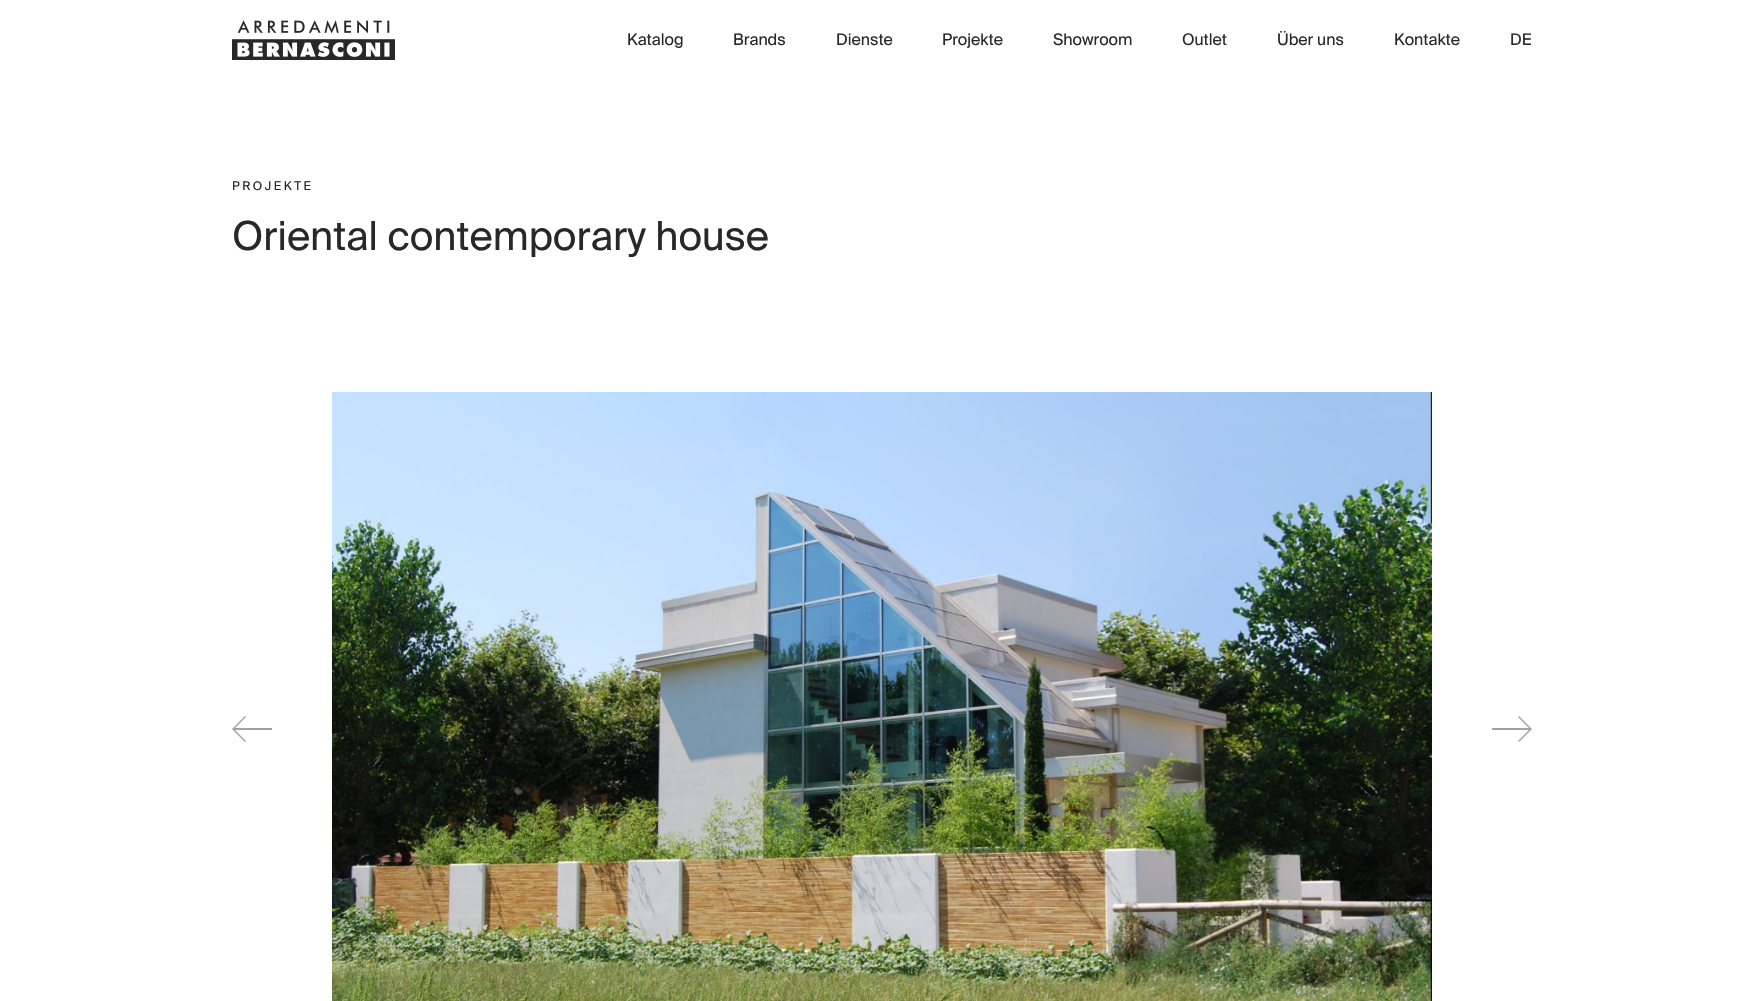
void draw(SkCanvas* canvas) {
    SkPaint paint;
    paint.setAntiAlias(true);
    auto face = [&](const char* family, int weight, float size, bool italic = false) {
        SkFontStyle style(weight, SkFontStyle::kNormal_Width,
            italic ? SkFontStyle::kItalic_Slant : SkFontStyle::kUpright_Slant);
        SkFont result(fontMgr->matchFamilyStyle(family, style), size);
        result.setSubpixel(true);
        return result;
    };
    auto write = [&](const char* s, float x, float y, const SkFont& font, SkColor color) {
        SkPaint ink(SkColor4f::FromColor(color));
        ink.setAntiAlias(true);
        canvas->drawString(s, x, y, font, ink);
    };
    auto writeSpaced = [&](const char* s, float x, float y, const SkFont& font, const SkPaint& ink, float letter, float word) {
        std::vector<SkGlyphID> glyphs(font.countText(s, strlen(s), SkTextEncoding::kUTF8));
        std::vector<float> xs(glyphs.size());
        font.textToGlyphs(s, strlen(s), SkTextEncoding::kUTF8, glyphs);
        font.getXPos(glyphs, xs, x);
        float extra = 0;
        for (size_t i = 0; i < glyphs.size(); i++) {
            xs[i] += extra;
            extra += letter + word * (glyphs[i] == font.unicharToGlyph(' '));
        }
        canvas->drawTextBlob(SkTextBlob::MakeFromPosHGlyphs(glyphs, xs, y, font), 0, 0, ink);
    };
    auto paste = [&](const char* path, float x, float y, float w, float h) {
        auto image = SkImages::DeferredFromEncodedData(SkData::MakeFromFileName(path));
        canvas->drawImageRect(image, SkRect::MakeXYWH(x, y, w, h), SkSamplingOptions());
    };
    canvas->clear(SK_ColorWHITE);
    paste("pic1.png", 232, 20, 163, 40);
    auto kFont1 = face("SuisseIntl", 400, 16);
    write("Katalog", 627, 45, kFont1, SkColorSetRGB(40, 40, 40));
    write("Brands", 733, 45, kFont1, SkColorSetRGB(40, 40, 40));
    write("Dienste", 836, 45, kFont1, SkColorSetRGB(40, 40, 40));
    write("Projekte", 942, 45, kFont1, SkColorSetRGB(40, 40, 40));
    write("Showroom", 1053, 45, kFont1, SkColorSetRGB(40, 40, 40));
    write("Outlet", 1182, 45, kFont1, SkColorSetRGB(40, 40, 40));
    write("Über uns", 1277, 45, kFont1, SkColorSetRGB(40, 40, 40));
    write("Kontakte", 1394, 45, kFont1, SkColorSetRGB(40, 40, 40));
    write("DE", 1510, 45, kFont1, SkColorSetRGB(40, 40, 40));
    auto kFont2 = face("SuisseIntl", 400, 12);
    paint.setColor(SkColorSetRGB(40, 40, 40));
    writeSpaced("PROJEKTE", 232, 190, kFont2, paint, 2.5f, 0);
    auto kFont3 = face("SuisseIntl", 400, 40);
    write("Oriental contemporary house", 232, 250, kFont3, SkColorSetRGB(40, 40, 40));
    paint.setColor(SkColorSetRGB(162, 162, 162));
    canvas->drawPath(SkPathBuilder().moveTo(245, 716).lineTo(246, 717).lineTo(235, 728).lineTo(272, 728).lineTo(272, 730).lineTo(235, 730).lineTo(246, 741).lineTo(245, 742).lineTo(232, 729).close().detach(), paint);
    paste("pic2.png", 332, 392, 1100, 609);
    canvas->drawPath(SkPathBuilder().moveTo(1519, 742).lineTo(1518, 741).lineTo(1529, 730).lineTo(1492, 730).lineTo(1492, 728).lineTo(1529, 728).lineTo(1518, 717).lineTo(1519, 716).lineTo(1532, 729).close().detach(), paint);
}
